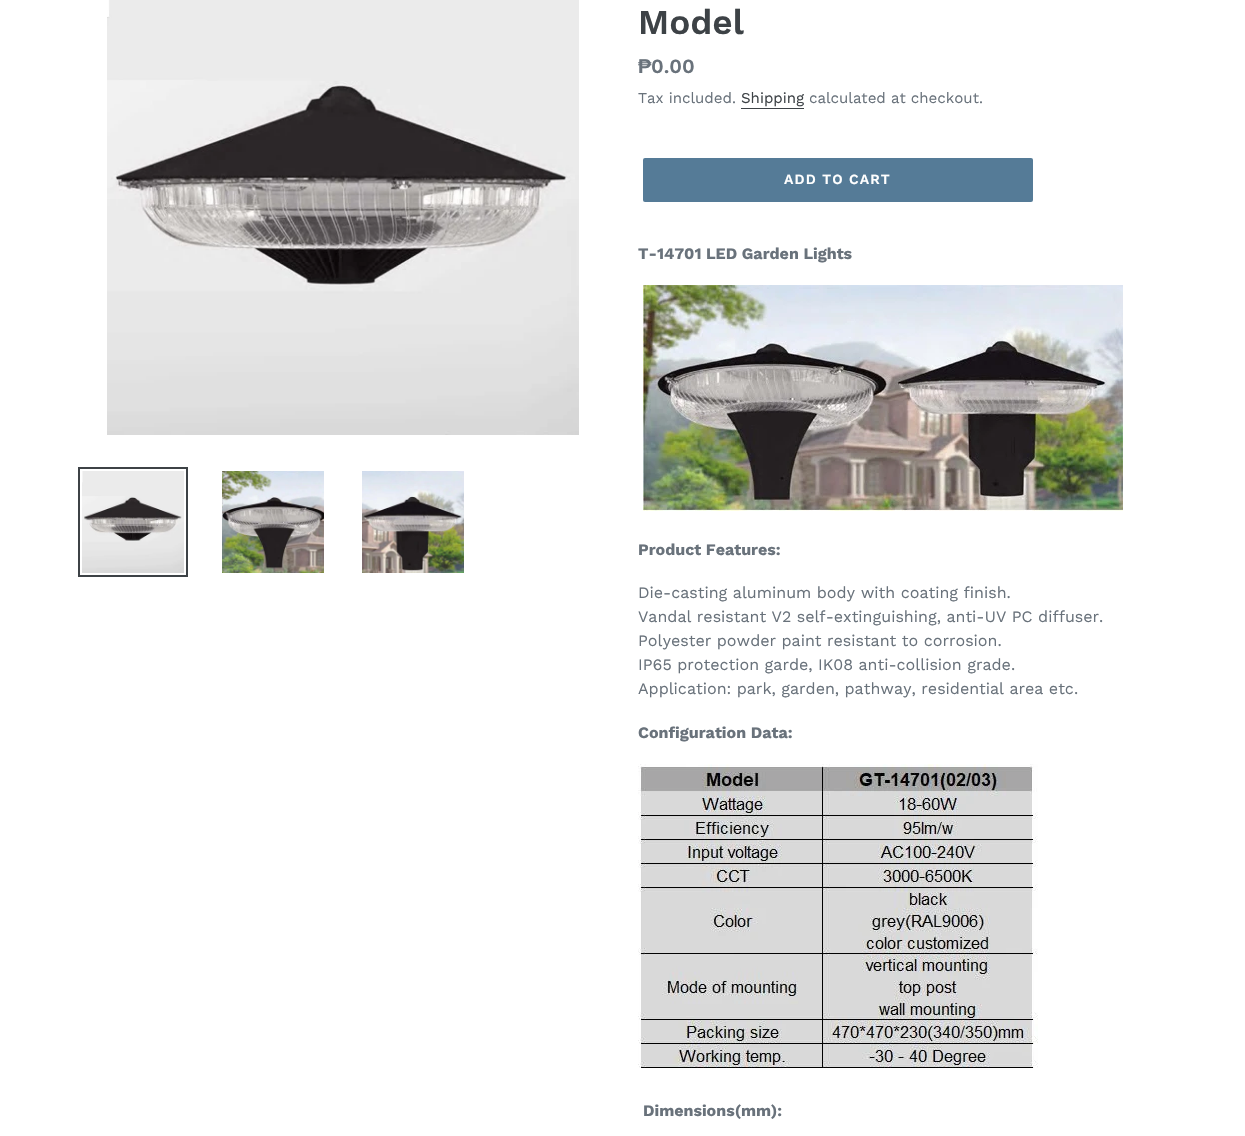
void draw(SkCanvas* canvas) {
    SkPaint paint;
    paint.setAntiAlias(true);
    auto face = [&](const char* family, int weight, float size, bool italic = false) {
        SkFontStyle style(weight, SkFontStyle::kNormal_Width,
            italic ? SkFontStyle::kItalic_Slant : SkFontStyle::kUpright_Slant);
        SkFont result(fontMgr->matchFamilyStyle(family, style), size);
        result.setSubpixel(true);
        return result;
    };
    auto write = [&](const char* s, float x, float y, const SkFont& font, SkColor color) {
        SkPaint ink(SkColor4f::FromColor(color));
        ink.setAntiAlias(true);
        canvas->drawString(s, x, y, font, ink);
    };
    auto writeSpaced = [&](const char* s, float x, float y, const SkFont& font, const SkPaint& ink, float letter, float word) {
        std::vector<SkGlyphID> glyphs(font.countText(s, strlen(s), SkTextEncoding::kUTF8));
        std::vector<float> xs(glyphs.size());
        font.textToGlyphs(s, strlen(s), SkTextEncoding::kUTF8, glyphs);
        font.getXPos(glyphs, xs, x);
        float extra = 0;
        for (size_t i = 0; i < glyphs.size(); i++) {
            xs[i] += extra;
            extra += letter + word * (glyphs[i] == font.unicharToGlyph(' '));
        }
        canvas->drawTextBlob(SkTextBlob::MakeFromPosHGlyphs(glyphs, xs, y, font), 0, 0, ink);
    };
    auto block = [&](float x, float y, float w, float h, SkColor color) {
        SkPaint ink(SkColor4f::FromColor(color));
        ink.setAntiAlias(true);
        canvas->drawRect(SkRect::MakeXYWH(x, y, w, h), ink);
    };
    auto card = [&](float x, float y, float w, float h, float radius, SkColor color) {
        SkPaint ink(SkColor4f::FromColor(color));
        ink.setAntiAlias(true);
        canvas->drawRoundRect(SkRect::MakeXYWH(x, y, w, h), radius, radius, ink);
    };
    auto paste = [&](const char* path, float x, float y, float w, float h) {
        auto image = SkImages::DeferredFromEncodedData(SkData::MakeFromFileName(path));
        canvas->drawImageRect(image, SkRect::MakeXYWH(x, y, w, h), SkSamplingOptions());
    };
    canvas->clear(SK_ColorWHITE);
    paste("pic1.png", 107, 0, 472, 435);
    paint.setStyle(SkPaint::kStroke_Style);
    paint.setStrokeWidth(2);
    paint.setColor(SkColorSetRGB(61, 66, 70));
    canvas->drawRect(SkRect::MakeXYWH(79, 468, 108, 108), paint);
    paste("pic2.png", 82, 471, 102, 102);
    paste("pic3.png", 222, 471, 102, 102);
    paste("pic4.png", 362, 471, 102, 102);
    auto kFont1 = face("Work Sans", 600, 35);
    write("Model", 638, 34, kFont1, SkColorSetRGB(61, 66, 70));
    auto kFont2 = face("Liberation Sans", 700, 20);
    write("₱", 638, 73, kFont2, SkColorSetRGB(105, 114, 123));
    auto kFont3 = face("Work Sans", 600, 20);
    write("0.00", 651, 73, kFont3, SkColorSetRGB(105, 114, 123));
    auto kFont4 = face("Work Sans", 400, 15);
    write("Tax included.", 638, 103, kFont4, SkColorSetRGB(105, 114, 123));
    write("Shipping", 741, 103, kFont4, SkColorSetRGB(61, 66, 70));
    block(741, 108, 63, 1, SkColorSetRGB(61, 66, 70));
    write("calculated at checkout.", 809, 103, kFont4, SkColorSetRGB(105, 114, 123));
    card(643, 158, 390, 44, 2, SkColorSetRGB(85, 123, 151));
    auto kFont5 = face("Work Sans", 600, 14);
    paint.setStyle(SkPaint::kFill_Style);
    paint.setColor(SK_ColorWHITE);
    writeSpaced("ADD TO CART", 784, 184, kFont5, paint, 1.1f, 0);
    auto kFont6 = face("Work Sans", 700, 16);
    write("T-14701 LED Garden Lights", 638, 259, kFont6, SkColorSetRGB(105, 114, 123));
    paste("pic5.png", 643, 285, 480, 226);
    write("Product Features:", 638, 555, kFont6, SkColorSetRGB(105, 114, 123));
    auto kFont7 = face("Work Sans", 400, 16);
    write("Die-casting aluminum body with coating finish.", 638, 598, kFont7, SkColorSetRGB(105, 114, 123));
    write("Vandal resistant V2 self-extinguishing, anti-UV PC diffuser.", 638, 622, kFont7, SkColorSetRGB(105, 114, 123));
    write("Polyester powder paint resistant to corrosion.", 638, 646, kFont7, SkColorSetRGB(105, 114, 123));
    write("IP65 protection garde, IK08 anti-collision grade.", 638, 670, kFont7, SkColorSetRGB(105, 114, 123));
    write("Application: park, garden, pathway, residential area etc.", 638, 694, kFont7, SkColorSetRGB(105, 114, 123));
    write("Configuration Data:", 638, 738, kFont6, SkColorSetRGB(105, 114, 123));
    paste("pic6.png", 638, 764, 400, 304);
    write("Dimensions(mm):", 643, 1116, kFont6, SkColorSetRGB(105, 114, 123));
}
